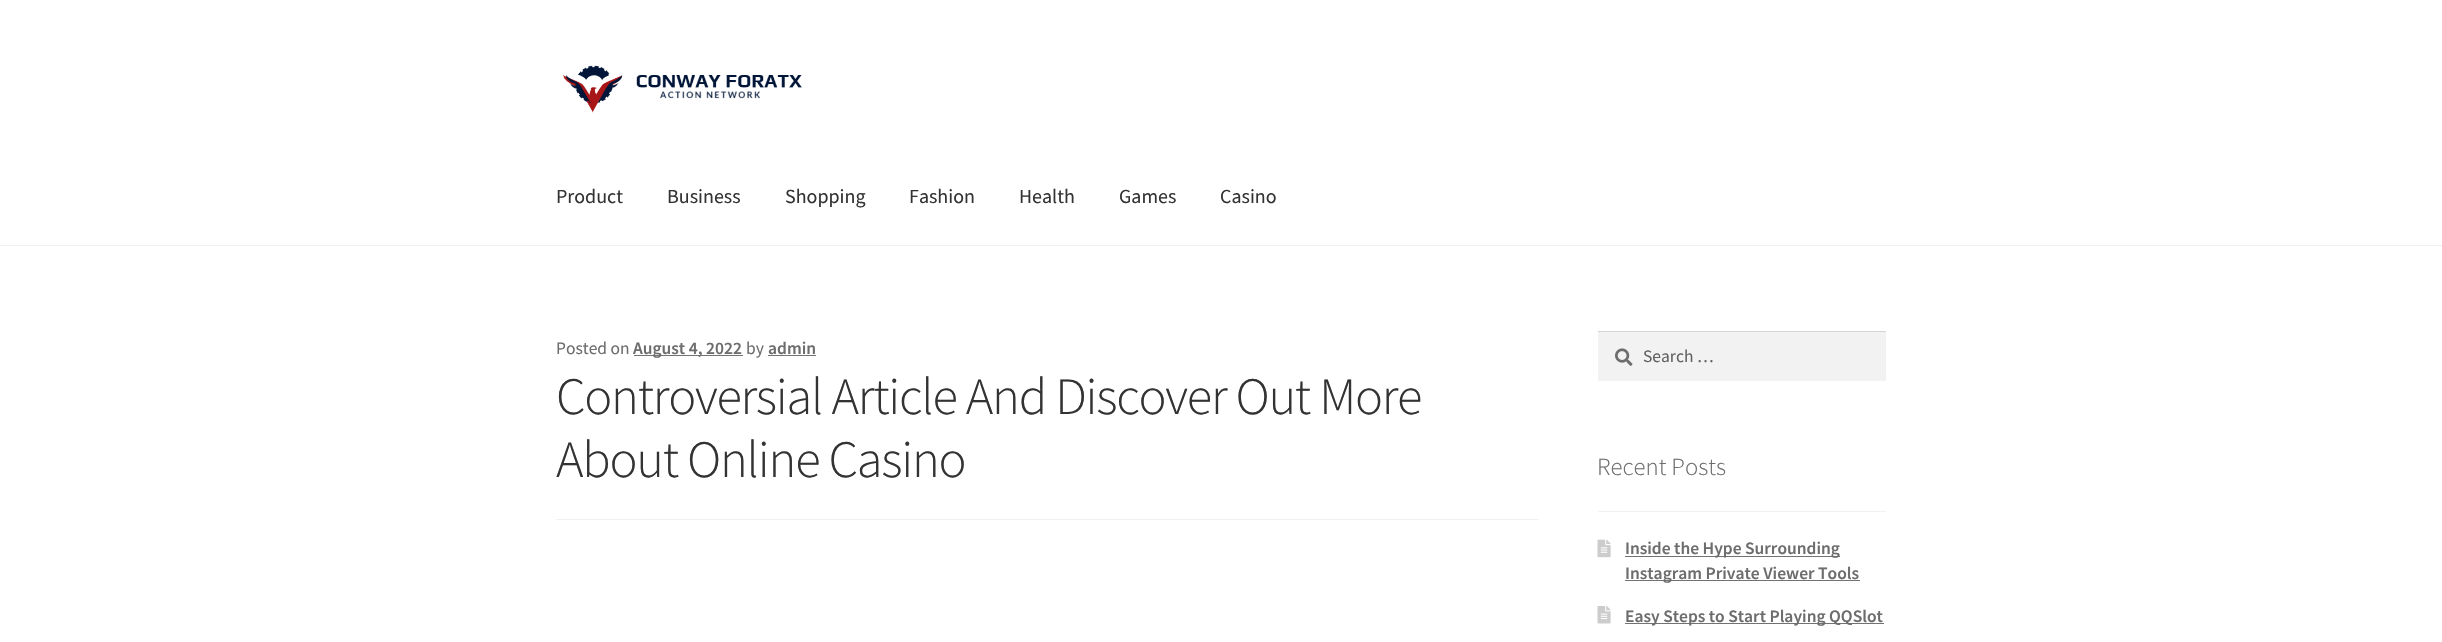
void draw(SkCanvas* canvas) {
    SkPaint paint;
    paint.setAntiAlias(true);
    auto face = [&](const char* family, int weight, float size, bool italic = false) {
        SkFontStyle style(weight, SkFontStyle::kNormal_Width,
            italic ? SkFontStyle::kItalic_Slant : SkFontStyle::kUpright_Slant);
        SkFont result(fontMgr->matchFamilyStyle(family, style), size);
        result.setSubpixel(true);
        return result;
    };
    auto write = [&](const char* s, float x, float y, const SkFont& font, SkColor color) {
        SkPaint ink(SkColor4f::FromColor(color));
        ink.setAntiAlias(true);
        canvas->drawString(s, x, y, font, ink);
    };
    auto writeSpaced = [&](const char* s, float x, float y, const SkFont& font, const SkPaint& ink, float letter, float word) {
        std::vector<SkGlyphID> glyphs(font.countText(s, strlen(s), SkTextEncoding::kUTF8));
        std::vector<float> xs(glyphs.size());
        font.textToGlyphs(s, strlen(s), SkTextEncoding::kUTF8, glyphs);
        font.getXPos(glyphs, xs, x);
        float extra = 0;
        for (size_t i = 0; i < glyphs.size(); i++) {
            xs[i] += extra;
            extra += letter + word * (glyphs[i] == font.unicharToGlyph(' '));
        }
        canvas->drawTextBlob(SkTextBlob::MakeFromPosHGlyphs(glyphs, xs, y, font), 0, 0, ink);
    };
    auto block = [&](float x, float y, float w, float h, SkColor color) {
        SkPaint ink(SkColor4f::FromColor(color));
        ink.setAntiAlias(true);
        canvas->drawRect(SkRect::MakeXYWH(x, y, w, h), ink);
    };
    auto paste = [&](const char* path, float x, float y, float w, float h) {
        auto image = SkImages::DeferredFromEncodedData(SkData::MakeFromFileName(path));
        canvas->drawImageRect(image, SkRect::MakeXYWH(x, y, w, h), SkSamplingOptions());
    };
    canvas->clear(SK_ColorWHITE);
    block(0, 245, 2442, 1, SkColorSetRGB(240, 240, 240));
    paste("pic1.png", 563, 65, 239, 48);
    auto kFont1 = face("Source Sans Pro", 400, 20);
    write("Product", 556, 203, kFont1, SkColorSetRGB(51, 51, 51));
    write("Business", 667, 203, kFont1, SkColorSetRGB(51, 51, 51));
    write("Shopping", 785, 203, kFont1, SkColorSetRGB(51, 51, 51));
    write("Fashion", 909, 203, kFont1, SkColorSetRGB(51, 51, 51));
    write("Health", 1019, 203, kFont1, SkColorSetRGB(51, 51, 51));
    write("Games", 1119, 203, kFont1, SkColorSetRGB(51, 51, 51));
    write("Casino", 1220, 203, kFont1, SkColorSetRGB(51, 51, 51));
    block(556, 519, 983, 1, SkColorSetRGB(242, 242, 242));
    auto kFont2 = face("Source Sans Pro", 400, 17.5f);
    write("Posted on", 556, 354, kFont2, SkColorSetRGB(109, 109, 109));
    block(634, 355, 109, 1, SkColorSetRGB(114, 114, 114));
    auto kFont3 = face("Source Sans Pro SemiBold", 600, 17.5f);
    write("August 4, 2022", 633, 354, kFont3, SkColorSetRGB(109, 109, 109));
    write("by", 746, 354, kFont2, SkColorSetRGB(109, 109, 109));
    write("admin", 768, 354, kFont3, SkColorSetRGB(109, 109, 109));
    block(768, 355, 48, 1, SkColorSetRGB(114, 114, 114));
    auto kFont4 = face("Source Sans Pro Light", 300, 52.4f);
    paint.setColor(SkColorSetRGB(51, 51, 51));
    writeSpaced("Controversial Article And Discover Out More", 556, 414, kFont4, paint, -1.25f, 0);
    writeSpaced("About Online Casino", 556, 477, kFont4, paint, -1.25f, 0);
    block(1598, 332, 288, 49, SkColorSetRGB(242, 242, 242));
    paste("pic2.png", 1615, 348, 18, 18);
    block(1598, 331, 288, 1, SkColorSetRGB(212, 212, 212));
    write("Search …", 1643, 362, kFont2, SkColorSetRGB(97, 97, 97));
    block(1598, 511, 288, 1, SkColorSetRGB(242, 242, 242));
    auto kFont5 = face("Source Sans Pro Light", 300, 24.75f);
    write("Recent Posts", 1597, 475, kFont5, SkColorSetRGB(109, 109, 109));
    paste("pic3.png", 1597, 539, 14, 19);
    block(1625, 556, 215, 1, SkColorSetRGB(114, 114, 114));
    write("Inside the Hype Surrounding", 1625, 554, kFont3, SkColorSetRGB(109, 109, 109));
    block(1625, 580, 235, 1, SkColorSetRGB(114, 114, 114));
    write("Instagram Private Viewer Tools", 1625, 579, kFont3, SkColorSetRGB(109, 109, 109));
    paste("pic4.png", 1597, 606, 14, 18);
    block(1625, 623, 259, 1, SkColorSetRGB(114, 114, 114));
    write("Easy Steps to Start Playing QQSlot", 1625, 622, kFont3, SkColorSetRGB(109, 109, 109));
}
